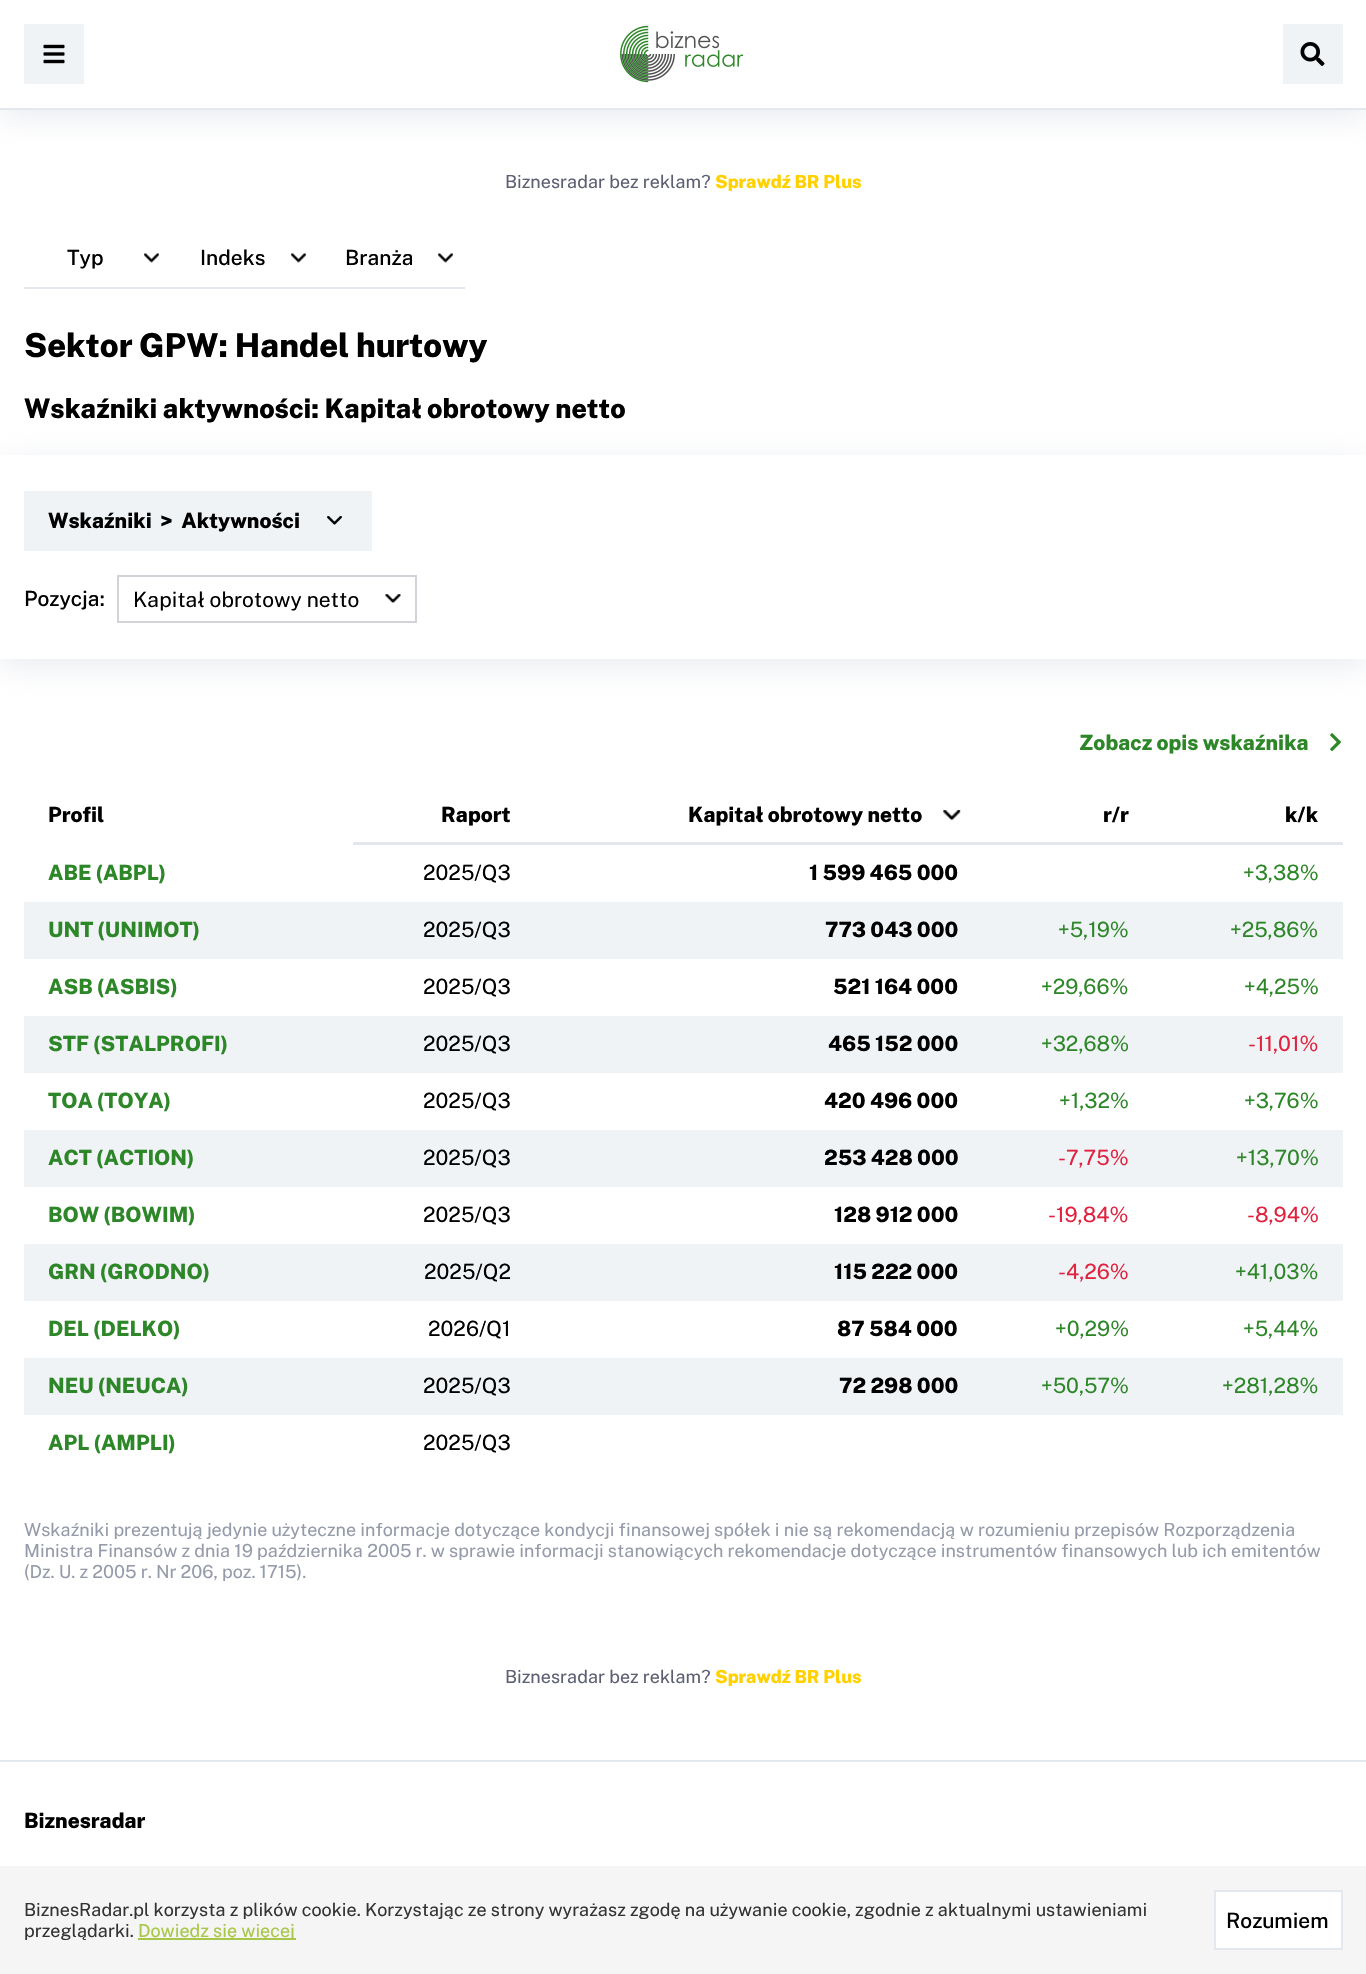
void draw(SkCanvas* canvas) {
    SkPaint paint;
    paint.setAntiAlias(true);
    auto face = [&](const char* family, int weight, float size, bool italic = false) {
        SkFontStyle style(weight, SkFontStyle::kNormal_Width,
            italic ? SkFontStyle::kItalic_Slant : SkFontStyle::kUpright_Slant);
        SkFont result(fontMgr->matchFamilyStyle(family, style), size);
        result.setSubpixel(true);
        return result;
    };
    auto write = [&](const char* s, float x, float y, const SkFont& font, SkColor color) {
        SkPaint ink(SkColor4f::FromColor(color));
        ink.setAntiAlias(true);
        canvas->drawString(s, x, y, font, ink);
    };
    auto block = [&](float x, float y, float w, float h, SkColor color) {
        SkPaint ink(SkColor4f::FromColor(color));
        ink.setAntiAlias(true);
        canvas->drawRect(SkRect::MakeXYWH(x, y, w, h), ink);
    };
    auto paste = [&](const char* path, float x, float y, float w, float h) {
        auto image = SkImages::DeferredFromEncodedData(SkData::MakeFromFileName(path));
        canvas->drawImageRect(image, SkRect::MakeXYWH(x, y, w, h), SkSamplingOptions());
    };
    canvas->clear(SK_ColorWHITE);
    paint.setColor(SkColorSetARGB(77, 182, 189, 204));
    paint.setMaskFilter(SkMaskFilter::MakeBlur(kNormal_SkBlurStyle, 15));
    canvas->drawRect(SkRect::MakeXYWH(0, 8, 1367, 109), paint);
    paint.setMaskFilter(nullptr);
    block(0, 0, 1366, 108, SK_ColorWHITE);
    block(0, 108, 1366, 2, SkColorSetRGB(226, 232, 237));
    block(24, 24, 60, 60, SkColorSetRGB(240, 243, 246));
    paste("pic1.png", 43, 44, 22, 20);
    paste("pic2.png", 620, 25, 124, 58);
    block(1283, 24, 60, 60, SkColorSetRGB(240, 243, 246));
    paste("pic3.png", 1300, 42, 25, 24);
    auto kFont1 = face("Public Sans", 400, 18);
    write("Biznesradar bez reklam?", 505, 188, kFont1, SkColorSetRGB(93, 95, 115));
    auto kFont2 = face("Public Sans", 800, 18);
    write("Sprawdź BR Plus", 715, 188, kFont2, SkColorSetRGB(255, 209, 0));
    paste("pic4.png", 144, 253, 15, 10);
    block(24, 287, 441, 2, SkColorSetRGB(226, 232, 237));
    auto kFont3 = face("Public Sans", 500, 21);
    write("Typ", 67, 265, kFont3, SK_ColorBLACK);
    paste("pic4.png", 291, 253, 15, 10);
    write("Indeks", 200, 265, kFont3, SK_ColorBLACK);
    paste("pic4.png", 438, 253, 15, 10);
    write("Branża", 345, 265, kFont3, SK_ColorBLACK);
    auto kFont4 = face("Public Sans", 800, 33);
    write("Sektor GPW: Handel hurtowy", 24, 357, kFont4, SK_ColorBLACK);
    canvas->save();
    canvas->clipPath(SkPathBuilder(SkPathFillType::kEvenOdd).moveTo(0, 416).lineTo(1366, 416).lineTo(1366, 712).lineTo(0, 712).close().moveTo(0, 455).lineTo(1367, 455).lineTo(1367, 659).lineTo(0, 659).close().detach(), true);
    paint.setMaskFilter(SkMaskFilter::MakeBlur(kNormal_SkBlurStyle, 15));
    canvas->drawRect(SkRect::MakeXYWH(0, 462, 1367, 204), paint);
    paint.setMaskFilter(nullptr);
    canvas->restore();
    auto kFont5 = face("Public Sans", 800, 27);
    write("Wskaźniki aktywności: Kapitał obrotowy netto", 24, 418, kFont5, SK_ColorBLACK);
    block(24, 491, 348, 60, SkColorSetRGB(240, 243, 246));
    paste("pic5.png", 327, 516, 15, 9);
    auto kFont6 = face("Public Sans", 800, 21);
    write("Wskaźniki  >  Aktywności", 48, 528, kFont6, SK_ColorBLACK);
    write("Pozycja:", 24, 606, kFont3, SK_ColorBLACK);
    paste("pic6.png", 385, 594, 16, 9);
    paint.setStyle(SkPaint::kStroke_Style);
    paint.setStrokeWidth(2);
    paint.setColor(SkColorSetRGB(209, 211, 216));
    canvas->drawRect(SkRect::MakeXYWH(118, 576, 298, 46), paint);
    auto kFont7 = face("Public Sans", 400, 21);
    write("Kapitał obrotowy netto", 133, 607, kFont7, SK_ColorBLACK);
    write("Zobacz opis wskaźnika", 1079, 750, kFont6, SkColorSetRGB(45, 135, 40));
    paste("pic7.png", 1330, 733, 11, 18);
    block(351, 842, 992, 3, SkColorSetRGB(226, 232, 237));
    block(351, 842, 2, 3, SK_ColorWHITE);
    write("Profil", 48, 822, kFont6, SK_ColorBLACK);
    write("Raport", 441, 822, kFont6, SK_ColorBLACK);
    write("Kapitał obrotowy netto", 688, 822, kFont6, SK_ColorBLACK);
    paste("pic8.png", 943, 810, 18, 11);
    write("r/r", 1103, 822, kFont6, SK_ColorBLACK);
    write("k/k", 1285, 822, kFont6, SK_ColorBLACK);
    write("ABE (ABPL)", 48, 880, kFont6, SkColorSetRGB(45, 135, 40));
    write("2025/Q3", 423, 880, kFont7, SK_ColorBLACK);
    write("1 599 465 000", 809, 880, kFont6, SK_ColorBLACK);
    write("+3,38%", 1243, 880, kFont7, SkColorSetRGB(45, 135, 40));
    block(24, 902, 1319, 57, SkColorSetRGB(240, 243, 246));
    write("UNT (UNIMOT)", 48, 937, kFont6, SkColorSetRGB(45, 135, 40));
    write("2025/Q3", 423, 937, kFont7, SK_ColorBLACK);
    write("773 043 000", 825, 937, kFont6, SK_ColorBLACK);
    write("+5,19%", 1058, 937, kFont7, SkColorSetRGB(45, 135, 40));
    write("+25,86%", 1230, 937, kFont7, SkColorSetRGB(45, 135, 40));
    write("ASB (ASBIS)", 48, 994, kFont6, SkColorSetRGB(45, 135, 40));
    write("2025/Q3", 423, 994, kFont7, SK_ColorBLACK);
    write("521 164 000", 833, 994, kFont6, SK_ColorBLACK);
    write("+29,66%", 1041, 994, kFont7, SkColorSetRGB(45, 135, 40));
    write("+4,25%", 1244, 994, kFont7, SkColorSetRGB(45, 135, 40));
    block(24, 1016, 1319, 57, SkColorSetRGB(240, 243, 246));
    write("STF (STALPROFI)", 48, 1051, kFont6, SkColorSetRGB(45, 135, 40));
    write("2025/Q3", 423, 1051, kFont7, SK_ColorBLACK);
    write("465 152 000", 828, 1051, kFont6, SK_ColorBLACK);
    write("+32,68%", 1041, 1051, kFont7, SkColorSetRGB(45, 135, 40));
    write("-11,01%", 1248, 1051, kFont7, SkColorSetRGB(224, 34, 62));
    write("TOA (TOYA)", 48, 1108, kFont6, SkColorSetRGB(45, 135, 40));
    write("2025/Q3", 423, 1108, kFont7, SK_ColorBLACK);
    write("420 496 000", 824, 1108, kFont6, SK_ColorBLACK);
    write("+1,32%", 1059, 1108, kFont7, SkColorSetRGB(45, 135, 40));
    write("+3,76%", 1244, 1108, kFont7, SkColorSetRGB(45, 135, 40));
    block(24, 1130, 1319, 57, SkColorSetRGB(240, 243, 246));
    write("ACT (ACTION)", 48, 1165, kFont6, SkColorSetRGB(45, 135, 40));
    write("2025/Q3", 423, 1165, kFont7, SK_ColorBLACK);
    write("253 428 000", 824, 1165, kFont6, SK_ColorBLACK);
    write("-7,75%", 1058, 1165, kFont7, SkColorSetRGB(224, 34, 62));
    write("+13,70%", 1236, 1165, kFont7, SkColorSetRGB(45, 135, 40));
    write("BOW (BOWIM)", 48, 1222, kFont6, SkColorSetRGB(45, 135, 40));
    write("2025/Q3", 423, 1222, kFont7, SK_ColorBLACK);
    write("128 912 000", 834, 1222, kFont6, SK_ColorBLACK);
    write("-19,84%", 1048, 1222, kFont7, SkColorSetRGB(224, 34, 62));
    write("-8,94%", 1247, 1222, kFont7, SkColorSetRGB(224, 34, 62));
    block(24, 1244, 1319, 57, SkColorSetRGB(240, 243, 246));
    write("GRN (GRODNO)", 48, 1279, kFont6, SkColorSetRGB(45, 135, 40));
    write("2025/Q2", 424, 1279, kFont7, SK_ColorBLACK);
    write("115 222 000", 834, 1279, kFont6, SK_ColorBLACK);
    write("-4,26%", 1058, 1279, kFont7, SkColorSetRGB(224, 34, 62));
    write("+41,03%", 1235, 1279, kFont7, SkColorSetRGB(45, 135, 40));
    write("DEL (DELKO)", 48, 1336, kFont6, SkColorSetRGB(45, 135, 40));
    write("2026/Q1", 428, 1336, kFont7, SK_ColorBLACK);
    write("87 584 000", 837, 1336, kFont6, SK_ColorBLACK);
    write("+0,29%", 1055, 1336, kFont7, SkColorSetRGB(45, 135, 40));
    write("+5,44%", 1243, 1336, kFont7, SkColorSetRGB(45, 135, 40));
    block(24, 1358, 1319, 57, SkColorSetRGB(240, 243, 246));
    write("NEU (NEUCA)", 48, 1393, kFont6, SkColorSetRGB(45, 135, 40));
    write("2025/Q3", 423, 1393, kFont7, SK_ColorBLACK);
    write("72 298 000", 839, 1393, kFont6, SK_ColorBLACK);
    write("+50,57%", 1041, 1393, kFont7, SkColorSetRGB(45, 135, 40));
    write("+281,28%", 1222, 1393, kFont7, SkColorSetRGB(45, 135, 40));
    write("APL (AMPLI)", 48, 1450, kFont6, SkColorSetRGB(45, 135, 40));
    write("2025/Q3", 423, 1450, kFont7, SK_ColorBLACK);
    write("Wskaźniki prezentują jedynie użyteczne informacje dotyczące kondycji finansowej spółek i nie są rekomendacją w rozumieniu przepisów Rozporządzenia", 24, 1536, kFont1, SkColorSetRGB(150, 155, 170));
    write("Ministra Finansów z dnia 19 października 2005 r. w sprawie informacji stanowiących rekomendacje dotyczące instrumentów finansowych lub ich emitentów", 24, 1557, kFont1, SkColorSetRGB(150, 155, 170));
    write("(Dz. U. z 2005 r. Nr 206, poz. 1715).", 24, 1578, kFont1, SkColorSetRGB(150, 155, 170));
    write("Biznesradar bez reklam?", 505, 1683, kFont1, SkColorSetRGB(93, 95, 115));
    write("Sprawdź BR Plus", 715, 1683, kFont2, SkColorSetRGB(255, 209, 0));
    block(0, 1760, 1366, 2, SkColorSetRGB(226, 232, 237));
    write("Biznesradar", 24, 1828, kFont6, SK_ColorBLACK);
    block(0, 1866, 1366, 108, SkColorSetRGB(245, 245, 245));
    write("BiznesRadar.pl korzysta z plików cookie. Korzystając ze strony wyrażasz zgodę na używanie cookie, zgodnie z aktualnymi ustawieniami", 24, 1916, kFont1, SkColorSetRGB(51, 51, 51));
    write("przeglądarki.", 24, 1937, kFont1, SkColorSetRGB(51, 51, 51));
    block(138, 1938, 158, 2, SkColorSetRGB(168, 199, 72));
    write("Dowiedz się więcej", 138, 1937, kFont1, SkColorSetRGB(168, 199, 72));
    paint.setStyle(SkPaint::kFill_Style);
    paint.setColor(SK_ColorWHITE);
    canvas->drawRect(SkRect::MakeXYWH(1215, 1891, 127, 58), paint);
    paint.setStyle(SkPaint::kStroke_Style);
    paint.setColor(SkColorSetRGB(226, 232, 237));
    canvas->drawRect(SkRect::MakeXYWH(1215, 1891, 127, 58), paint);
    write("Rozumiem", 1226, 1928, kFont3, SK_ColorBLACK);
}
